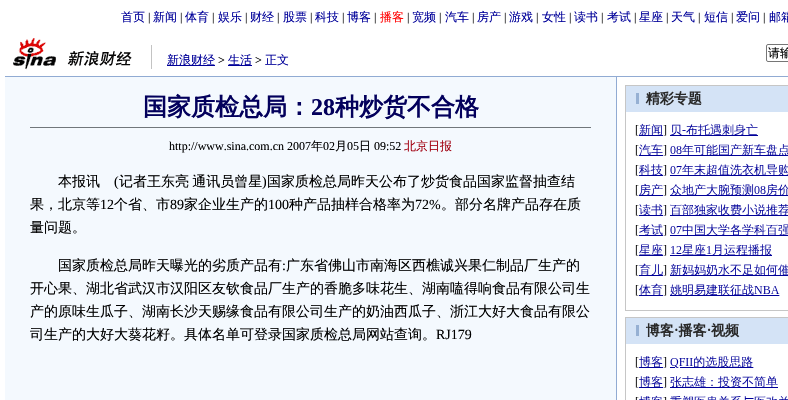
void draw(SkCanvas* canvas) {
    SkPaint paint;
    paint.setAntiAlias(true);
    auto face = [&](const char* family, int weight, float size, bool italic = false) {
        SkFontStyle style(weight, SkFontStyle::kNormal_Width,
            italic ? SkFontStyle::kItalic_Slant : SkFontStyle::kUpright_Slant);
        SkFont result(fontMgr->matchFamilyStyle(family, style), size);
        result.setSubpixel(true);
        return result;
    };
    auto write = [&](const char* s, float x, float y, const SkFont& font, SkColor color) {
        SkPaint ink(SkColor4f::FromColor(color));
        ink.setAntiAlias(true);
        canvas->drawString(s, x, y, font, ink);
    };
    auto writeSpaced = [&](const char* s, float x, float y, const SkFont& font, const SkPaint& ink, float letter, float word) {
        std::vector<SkGlyphID> glyphs(font.countText(s, strlen(s), SkTextEncoding::kUTF8));
        std::vector<float> xs(glyphs.size());
        font.textToGlyphs(s, strlen(s), SkTextEncoding::kUTF8, glyphs);
        font.getXPos(glyphs, xs, x);
        float extra = 0;
        for (size_t i = 0; i < glyphs.size(); i++) {
            xs[i] += extra;
            extra += letter + word * (glyphs[i] == font.unicharToGlyph(' '));
        }
        canvas->drawTextBlob(SkTextBlob::MakeFromPosHGlyphs(glyphs, xs, y, font), 0, 0, ink);
    };
    auto block = [&](float x, float y, float w, float h, SkColor color) {
        SkPaint ink(SkColor4f::FromColor(color));
        ink.setAntiAlias(true);
        canvas->drawRect(SkRect::MakeXYWH(x, y, w, h), ink);
    };
    auto paste = [&](const char* path, float x, float y, float w, float h) {
        auto image = SkImages::DeferredFromEncodedData(SkData::MakeFromFileName(path));
        canvas->drawImageRect(image, SkRect::MakeXYWH(x, y, w, h), SkSamplingOptions());
    };
    canvas->clear(SK_ColorWHITE);
    auto kFont1 = face("WenQuanYi Zen Hei", 500, 12);
    write("首页", 121, 21, kFont1, SkColorSetRGB(0, 0, 153));
    auto kFont2 = face("Liberation Serif", 400, 12);
    write("|", 148, 21, kFont2, SK_ColorBLACK);
    write("新闻", 153, 21, kFont1, SkColorSetRGB(0, 0, 153));
    write("|", 180, 21, kFont2, SK_ColorBLACK);
    write("体育", 185, 21, kFont1, SkColorSetRGB(0, 0, 153));
    write("|", 212, 21, kFont2, SK_ColorBLACK);
    write("娱乐", 218, 21, kFont1, SkColorSetRGB(0, 0, 153));
    write("|", 245, 21, kFont2, SK_ColorBLACK);
    write("财经", 250, 21, kFont1, SkColorSetRGB(0, 0, 153));
    write("|", 277, 21, kFont2, SK_ColorBLACK);
    write("股票", 283, 21, kFont1, SkColorSetRGB(0, 0, 153));
    write("|", 310, 21, kFont2, SK_ColorBLACK);
    write("科技", 315, 21, kFont1, SkColorSetRGB(0, 0, 153));
    write("|", 342, 21, kFont2, SK_ColorBLACK);
    write("博客", 347, 21, kFont1, SkColorSetRGB(0, 0, 153));
    write("|", 374, 21, kFont2, SK_ColorBLACK);
    write("播客", 380, 21, kFont1, SkColorSetRGB(255, 0, 0));
    write("|", 407, 21, kFont2, SK_ColorBLACK);
    write("宽频", 412, 21, kFont1, SkColorSetRGB(0, 0, 153));
    write("|", 439, 21, kFont2, SK_ColorBLACK);
    write("汽车", 445, 21, kFont1, SkColorSetRGB(0, 0, 153));
    write("|", 472, 21, kFont2, SK_ColorBLACK);
    write("房产", 477, 21, kFont1, SkColorSetRGB(0, 0, 153));
    write("|", 504, 21, kFont2, SK_ColorBLACK);
    write("游戏", 509, 21, kFont1, SkColorSetRGB(0, 0, 153));
    write("|", 536, 21, kFont2, SK_ColorBLACK);
    write("女性", 542, 21, kFont1, SkColorSetRGB(0, 0, 153));
    write("|", 569, 21, kFont2, SK_ColorBLACK);
    write("读书", 574, 21, kFont1, SkColorSetRGB(0, 0, 153));
    write("|", 601, 21, kFont2, SK_ColorBLACK);
    write("考试", 607, 21, kFont1, SkColorSetRGB(0, 0, 153));
    write("|", 634, 21, kFont2, SK_ColorBLACK);
    write("星座", 639, 21, kFont1, SkColorSetRGB(0, 0, 153));
    write("|", 666, 21, kFont2, SK_ColorBLACK);
    write("天气", 671, 21, kFont1, SkColorSetRGB(0, 0, 153));
    write("|", 698, 21, kFont2, SK_ColorBLACK);
    write("短信", 704, 21, kFont1, SkColorSetRGB(0, 0, 153));
    write("|", 731, 21, kFont2, SK_ColorBLACK);
    write("爱问", 736, 21, kFont1, SkColorSetRGB(0, 0, 153));
    write("|", 763, 21, kFont2, SK_ColorBLACK);
    write("邮箱", 769, 21, kFont1, SkColorSetRGB(0, 0, 153));
    paste("pic1.png", 13, 38, 119, 32);
    block(151, 45, 1, 24, SkColorSetRGB(195, 195, 195));
    block(167, 65, 48, 1, SkColorSetRGB(0, 0, 153));
    write("新浪财经", 167, 64, kFont1, SkColorSetRGB(0, 0, 153));
    write(">", 218, 64, kFont2, SK_ColorBLACK);
    block(228, 65, 24, 1, SkColorSetRGB(0, 0, 153));
    write("生活", 228, 64, kFont1, SkColorSetRGB(0, 0, 153));
    write(">", 255, 64, kFont2, SK_ColorBLACK);
    write("正文", 265, 64, kFont1, SkColorSetRGB(0, 0, 153));
    paint.setStyle(SkPaint::kStroke_Style);
    paint.setStrokeWidth(1);
    paint.setColor(SkColorSetRGB(118, 118, 118));
    canvas->drawRoundRect(SkRect::MakeXYWH(766.5f, 44.5f, 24, 17), 1.5f, 1.5f, paint);
    write("请输", 768, 57, kFont1, SK_ColorBLACK);
    block(5, 77, 611, 323, SkColorSetRGB(244, 249, 254));
    block(5, 76, 783, 1, SkColorSetRGB(145, 171, 211));
    block(616, 76, 1, 324, SkColorSetRGB(145, 171, 211));
    block(30, 127, 561, 1, SkColorSetRGB(113, 119, 123));
    auto kFont3 = face("WenQuanYi Zen Hei", 700, 24);
    write("国家质检总局：", 143, 115, kFont3, SkColorSetRGB(3, 0, 92));
    auto kFont4 = face("Liberation Serif", 700, 24);
    write("28", 311, 115, kFont4, SkColorSetRGB(3, 0, 92));
    write("种炒货不合格", 335, 115, kFont3, SkColorSetRGB(3, 0, 92));
    write("http://www.sina.com.cn 2007", 169, 150, kFont2, SK_ColorBLACK);
    write("年", 311, 150, kFont1, SK_ColorBLACK);
    write("02", 323, 150, kFont2, SK_ColorBLACK);
    write("月", 335, 150, kFont1, SK_ColorBLACK);
    write("05", 347, 150, kFont2, SK_ColorBLACK);
    write("日", 359, 150, kFont1, SK_ColorBLACK);
    write("09:52", 374, 150, kFont2, SK_ColorBLACK);
    write("北京日报", 404, 150, kFont1, SkColorSetRGB(162, 0, 16));
    auto kFont5 = face("WenQuanYi Zen Hei", 500, 14);
    write("本报讯", 58, 186, kFont5, SK_ColorBLACK);
    auto kFont6 = face("Liberation Serif", 400, 14);
    write("(", 114, 186, kFont6, SK_ColorBLACK);
    paint.setStyle(SkPaint::kFill_Style);
    paint.setColor(SK_ColorBLACK);
    writeSpaced("记者王东亮 通讯员曾星", 119, 186, kFont5, paint, 0, -1);
    write(")", 262, 186, kFont6, SK_ColorBLACK);
    write("国家质检总局昨天公布了炒货食品国家监督抽查结", 267, 186, kFont5, SK_ColorBLACK);
    write("果，北京等", 30, 209, kFont5, SK_ColorBLACK);
    write("12", 100, 209, kFont6, SK_ColorBLACK);
    write("个省、市", 114, 209, kFont5, SK_ColorBLACK);
    write("89", 170, 209, kFont6, SK_ColorBLACK);
    write("家企业生产的", 184, 209, kFont5, SK_ColorBLACK);
    write("100", 268, 209, kFont6, SK_ColorBLACK);
    write("种产品抽样合格率为", 289, 209, kFont5, SK_ColorBLACK);
    write("72%", 415, 209, kFont6, SK_ColorBLACK);
    write("。部分名牌产品存在质", 441, 209, kFont5, SK_ColorBLACK);
    write("量问题。", 30, 232, kFont5, SK_ColorBLACK);
    write("国家质检总局昨天曝光的劣质产品有", 58, 270, kFont5, SK_ColorBLACK);
    write(":", 282, 270, kFont6, SK_ColorBLACK);
    write("广东省佛山市南海区西樵诚兴果仁制品厂生产的", 286, 270, kFont5, SK_ColorBLACK);
    write("开心果、湖北省武汉市汉阳区友钦食品厂生产的香脆多味花生、湖南嗑得响食品有限公司生", 30, 293, kFont5, SK_ColorBLACK);
    write("产的原味生瓜子、湖南长沙天赐缘食品有限公司生产的奶油西瓜子、浙江大好大食品有限公", 30, 316, kFont5, SK_ColorBLACK);
    write("司生产的大好大葵花籽。具体名单可登录国家质检总局网站查询。", 30, 339, kFont5, SK_ColorBLACK);
    write("RJ179", 436, 339, kFont6, SK_ColorBLACK);
    paste("pic2.png", 625, 85, 163, 226);
    paste("pic3.png", 625, 317, 163, 83);
}
